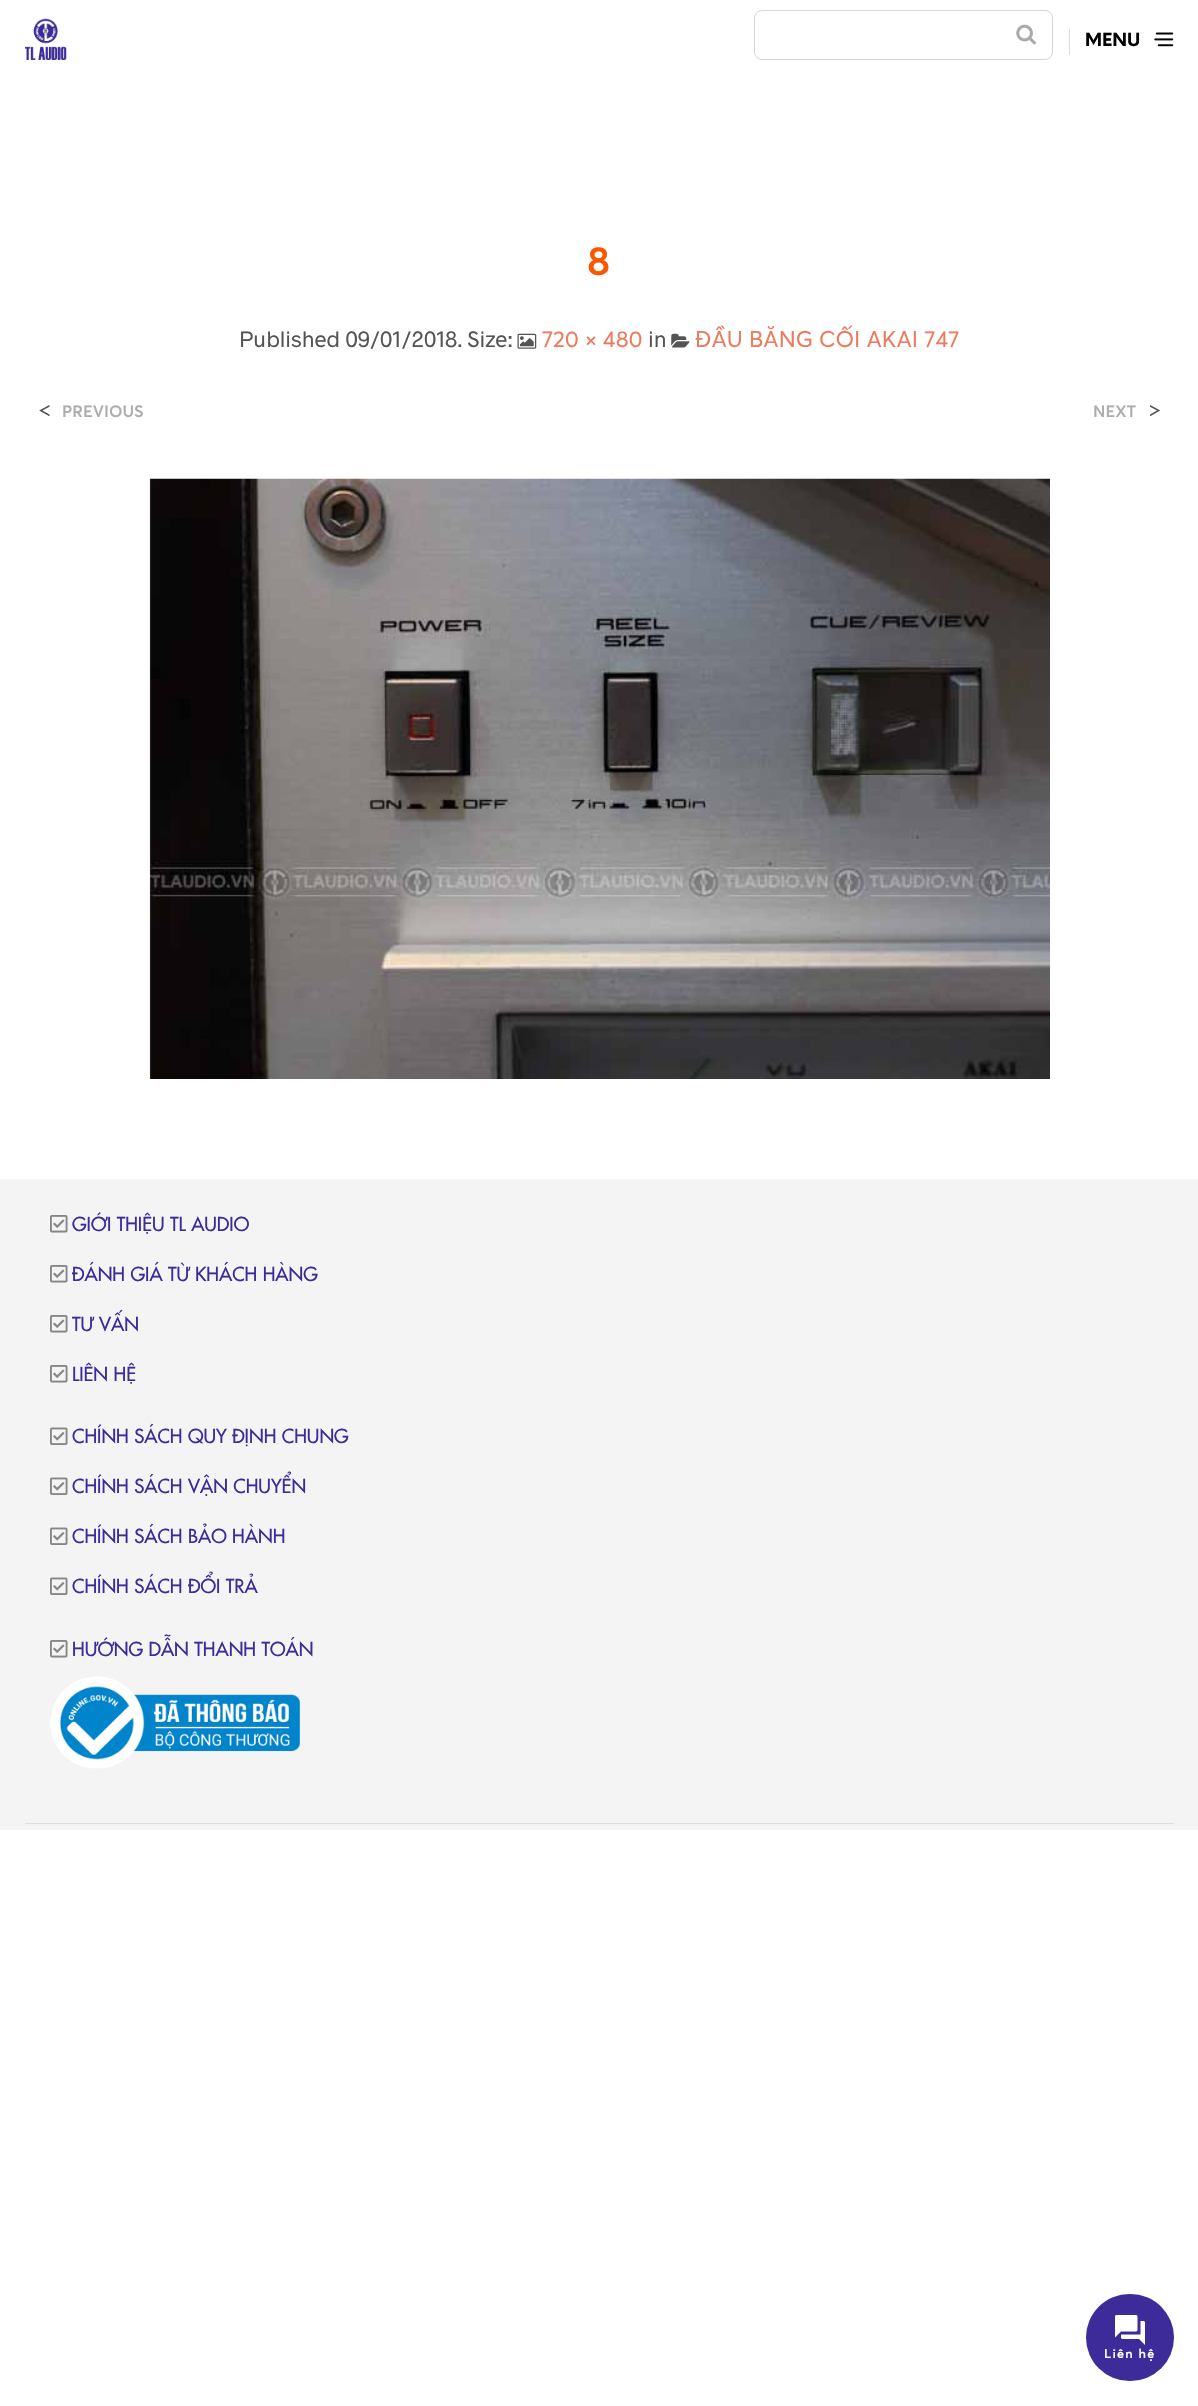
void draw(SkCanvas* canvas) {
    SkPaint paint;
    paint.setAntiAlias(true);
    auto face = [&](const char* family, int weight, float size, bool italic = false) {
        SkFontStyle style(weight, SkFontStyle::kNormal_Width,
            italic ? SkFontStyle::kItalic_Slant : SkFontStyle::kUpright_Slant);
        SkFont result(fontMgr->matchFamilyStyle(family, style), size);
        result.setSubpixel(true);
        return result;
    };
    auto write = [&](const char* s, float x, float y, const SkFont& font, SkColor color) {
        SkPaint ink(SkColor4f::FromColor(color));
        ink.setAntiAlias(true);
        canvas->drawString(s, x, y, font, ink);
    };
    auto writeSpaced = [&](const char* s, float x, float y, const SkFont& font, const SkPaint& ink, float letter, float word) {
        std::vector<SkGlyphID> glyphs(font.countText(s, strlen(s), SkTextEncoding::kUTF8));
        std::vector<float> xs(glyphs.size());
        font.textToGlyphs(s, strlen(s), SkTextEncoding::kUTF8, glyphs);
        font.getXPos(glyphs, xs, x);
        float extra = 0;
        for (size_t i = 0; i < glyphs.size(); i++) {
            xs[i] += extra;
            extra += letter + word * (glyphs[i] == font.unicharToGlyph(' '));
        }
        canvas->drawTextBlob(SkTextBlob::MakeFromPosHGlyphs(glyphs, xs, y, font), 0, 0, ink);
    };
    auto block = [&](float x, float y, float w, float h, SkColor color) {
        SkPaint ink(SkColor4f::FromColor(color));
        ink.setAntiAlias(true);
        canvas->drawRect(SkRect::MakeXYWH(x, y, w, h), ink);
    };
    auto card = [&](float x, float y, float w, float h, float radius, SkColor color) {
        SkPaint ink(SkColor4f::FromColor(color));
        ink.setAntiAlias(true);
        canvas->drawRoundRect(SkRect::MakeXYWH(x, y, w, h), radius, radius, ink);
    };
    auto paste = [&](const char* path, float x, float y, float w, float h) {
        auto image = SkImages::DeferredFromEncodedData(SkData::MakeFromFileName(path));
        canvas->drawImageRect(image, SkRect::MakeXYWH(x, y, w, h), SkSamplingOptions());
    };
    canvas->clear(SK_ColorWHITE);
    paste("pic1.png", 25, 18, 42, 42);
    paint.setStyle(SkPaint::kStroke_Style);
    paint.setStrokeWidth(1);
    paint.setColor(SkColorSetRGB(214, 214, 214));
    canvas->drawRoundRect(SkRect::MakeXYWH(754.5f, 10.5f, 298, 49), 7.5f, 7.5f, paint);
    paste("pic2.png", 1016, 24, 20, 21);
    block(1069, 29, 1, 26, SkColorSetRGB(221, 221, 221));
    auto kFont1 = face("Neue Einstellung", 700, 17.5f);
    write("MENU", 1085, 46, kFont1, SK_ColorBLACK);
    paste("pic3.png", 1154, 32, 20, 15);
    auto kFont2 = face("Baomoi", 600, 40);
    paint.setStyle(SkPaint::kFill_Style);
    paint.setColor(SkColorSetRGB(250, 86, 0));
    writeSpaced("8", 587, 275, kFont2, paint, 1.25f, 0);
    auto kFont3 = face("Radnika", 400, 22.5f);
    write("Published 09/01/2018. Size:", 239, 347, kFont3, SkColorSetRGB(84, 84, 84));
    paste("pic4.png", 517, 333, 20, 16);
    auto kFont4 = face("Baomoi", 400, 22.5f);
    write("720 × 480", 542, 347, kFont4, SkColorSetRGB(236, 122, 92));
    write("in", 648, 347, kFont3, SkColorSetRGB(84, 84, 84));
    paste("pic5.png", 671, 333, 19, 15);
    write("ĐẦU BĂNG CỐI AKAI 747", 695, 347, kFont4, SkColorSetRGB(236, 122, 92));
    write("<", 38, 418, kFont3, SkColorSetRGB(84, 84, 84));
    auto kFont5 = face("Baomoi", 600, 16.25f);
    write("PREVIOUS", 62, 417, kFont5, SkColorSetRGB(173, 173, 173));
    write("NEXT", 1093, 417, kFont5, SkColorSetRGB(173, 173, 173));
    write(">", 1148, 418, kFont3, SkColorSetRGB(84, 84, 84));
    paste("pic6.png", 149, 478, 901, 601);
    block(0, 1179, 1198, 651, SkColorSetRGB(244, 244, 244));
    block(25, 1823, 1149, 1, SkColorSetRGB(221, 221, 221));
    paste("pic7.png", 50, 1215, 18, 18);
    auto kFont6 = face("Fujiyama", 400, 18.75f);
    write("GIỚI THIỆU TL AUDIO", 72, 1231, kFont6, SkColorSetRGB(60, 43, 153));
    paste("pic7.png", 50, 1265, 18, 18);
    write("ĐÁNH GIÁ TỪ KHÁCH HÀNG", 72, 1281, kFont6, SkColorSetRGB(60, 43, 153));
    paste("pic7.png", 50, 1315, 18, 18);
    write("TƯ VẤN", 72, 1331, kFont6, SkColorSetRGB(60, 43, 153));
    paste("pic7.png", 50, 1365, 18, 18);
    write("LIÊN HỆ", 72, 1381, kFont6, SkColorSetRGB(60, 43, 153));
    paste("pic8.png", 50, 1427, 18, 18);
    write("CHÍNH SÁCH QUY ĐỊNH CHUNG", 72, 1443, kFont6, SkColorSetRGB(60, 43, 153));
    paste("pic8.png", 50, 1477, 18, 18);
    write("CHÍNH SÁCH VẬN CHUYỂN", 72, 1493, kFont6, SkColorSetRGB(60, 43, 153));
    paste("pic8.png", 50, 1527, 18, 18);
    write("CHÍNH SÁCH BẢO HÀNH", 72, 1543, kFont6, SkColorSetRGB(60, 43, 153));
    paste("pic8.png", 50, 1577, 18, 18);
    write("CHÍNH SÁCH ĐỔI TRẢ", 72, 1593, kFont6, SkColorSetRGB(60, 43, 153));
    paste("pic7.png", 50, 1640, 18, 18);
    write("HƯỚNG DẪN THANH TOÁN", 72, 1656, kFont6, SkColorSetRGB(60, 43, 153));
    paste("pic9.png", 50, 1676, 250, 93);
    card(1086, 2294, 88, 87, 43.5f, SkColorSetRGB(60, 43, 153));
    paste("pic10.png", 1115, 2315, 30, 30);
    auto kFont7 = face("Baomoi", 600, 12.5f);
    paint.setColor(SK_ColorWHITE);
    writeSpaced("Liên hệ", 1104, 2358, kFont7, paint, 1.25f, 0);
}
